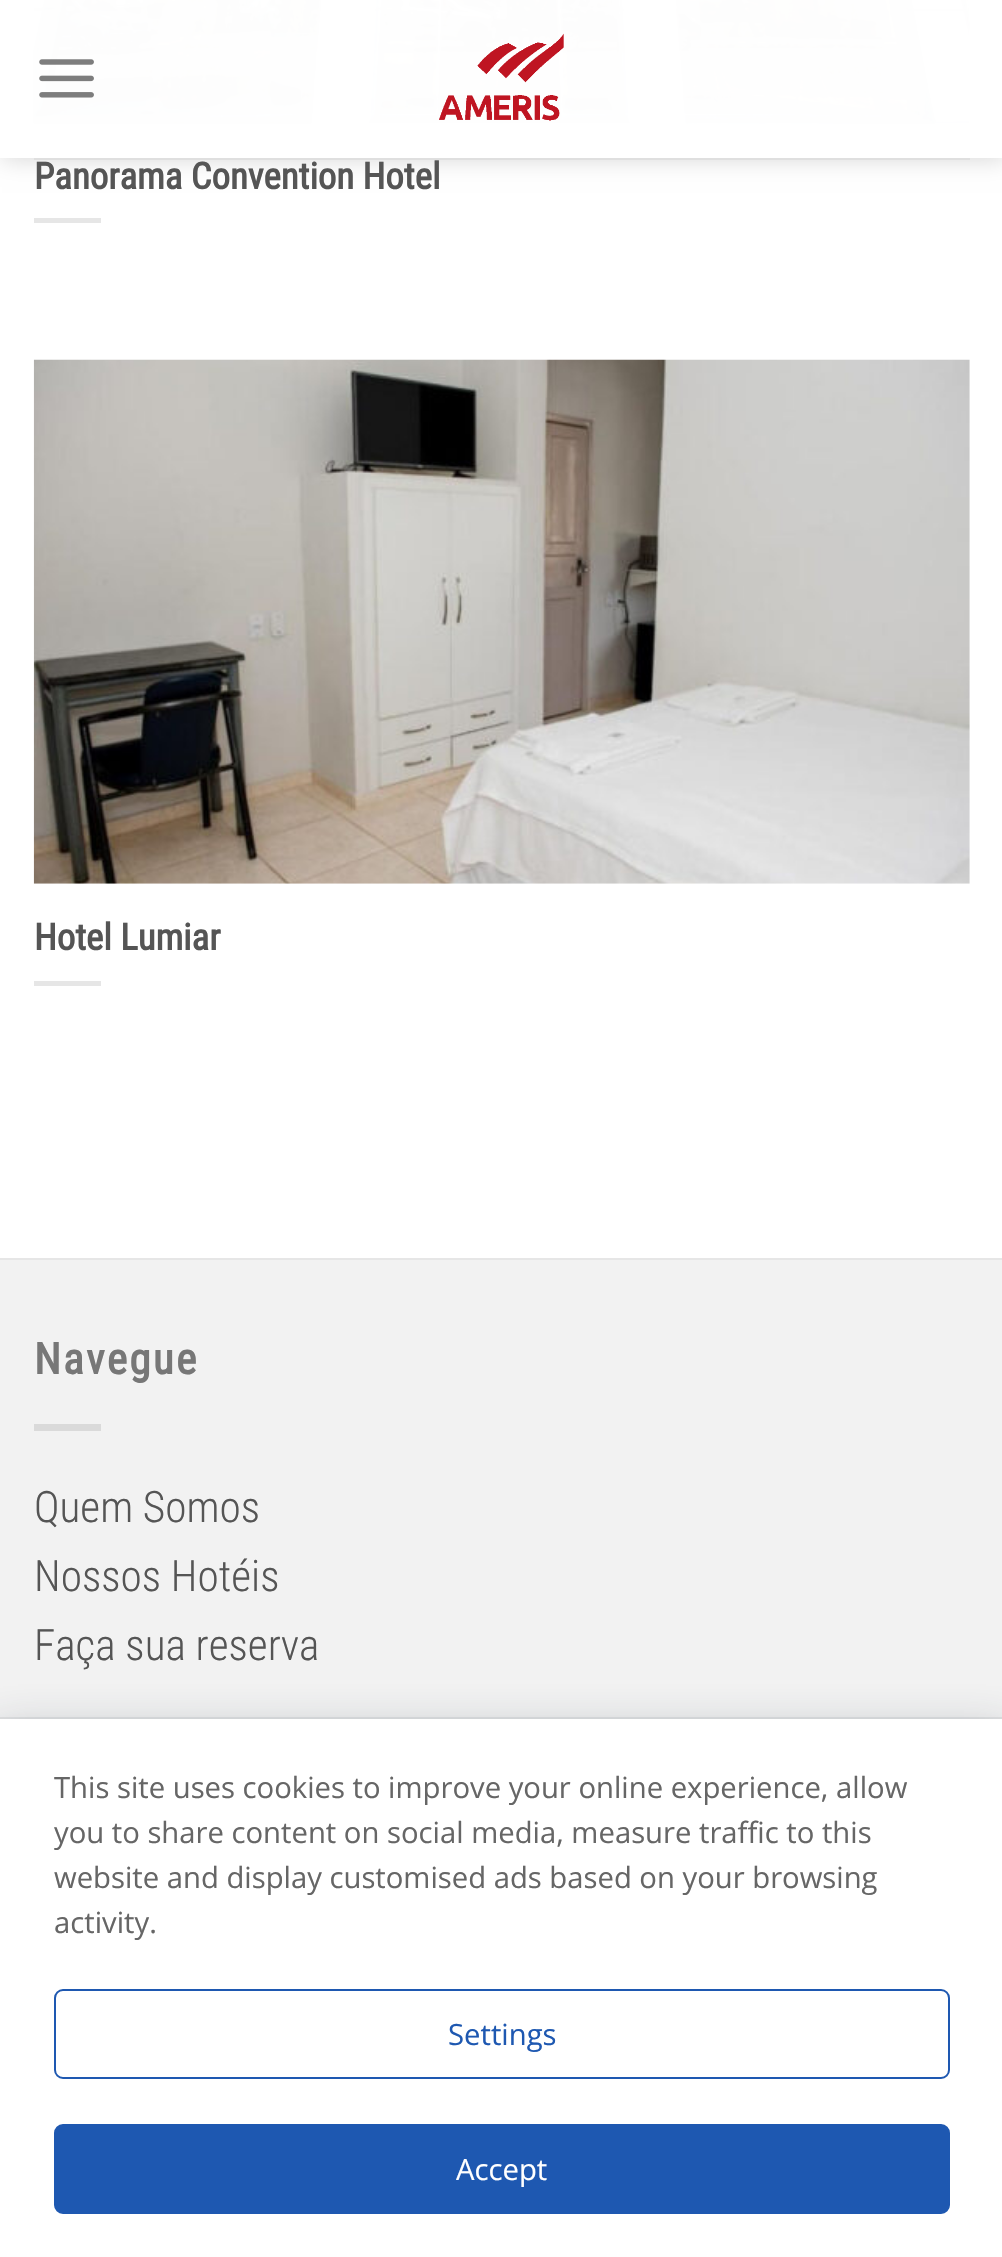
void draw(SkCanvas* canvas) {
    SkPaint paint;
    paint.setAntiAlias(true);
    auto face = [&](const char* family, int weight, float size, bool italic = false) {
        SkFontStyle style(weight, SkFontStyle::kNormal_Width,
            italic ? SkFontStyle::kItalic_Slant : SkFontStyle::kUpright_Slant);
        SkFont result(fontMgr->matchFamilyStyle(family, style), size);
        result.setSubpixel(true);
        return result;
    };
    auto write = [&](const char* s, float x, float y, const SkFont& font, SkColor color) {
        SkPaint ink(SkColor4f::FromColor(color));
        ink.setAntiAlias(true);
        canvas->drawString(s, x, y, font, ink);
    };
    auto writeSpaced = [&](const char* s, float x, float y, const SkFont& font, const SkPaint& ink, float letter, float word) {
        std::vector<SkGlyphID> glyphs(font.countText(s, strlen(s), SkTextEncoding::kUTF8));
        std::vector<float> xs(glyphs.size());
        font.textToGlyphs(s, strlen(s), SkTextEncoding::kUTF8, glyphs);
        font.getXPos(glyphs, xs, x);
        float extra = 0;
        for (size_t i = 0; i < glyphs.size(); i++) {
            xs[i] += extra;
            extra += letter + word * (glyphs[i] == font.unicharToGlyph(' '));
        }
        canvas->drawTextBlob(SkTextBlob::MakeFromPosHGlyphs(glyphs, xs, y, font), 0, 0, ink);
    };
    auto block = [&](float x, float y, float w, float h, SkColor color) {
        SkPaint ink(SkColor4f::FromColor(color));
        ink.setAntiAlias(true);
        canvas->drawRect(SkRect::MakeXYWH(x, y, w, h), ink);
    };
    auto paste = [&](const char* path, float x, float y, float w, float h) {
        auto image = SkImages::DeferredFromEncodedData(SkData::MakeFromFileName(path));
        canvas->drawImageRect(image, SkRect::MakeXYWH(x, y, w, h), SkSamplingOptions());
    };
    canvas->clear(SK_ColorWHITE);
    paste("pic3.png", 33, 0, 937, 124);
    canvas->save();
    canvas->clipPath(SkPathBuilder(SkPathFillType::kEvenOdd).moveTo(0, 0).lineTo(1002, 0).lineTo(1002, 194).lineTo(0, 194).close().moveTo(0, 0).lineTo(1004, 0).lineTo(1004, 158).lineTo(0, 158).close().detach(), true);
    paint.setColor(SkColorSetARGB(38, 0, 0, 0));
    paint.setMaskFilter(SkMaskFilter::MakeBlur(kNormal_SkBlurStyle, 11));
    canvas->drawRect(SkRect::MakeXYWH(2, 2, 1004, 158), paint);
    paint.setMaskFilter(nullptr);
    canvas->restore();
    block(0, 0, 1002, 158, SkColorSetARGB(230, 255, 255, 255));
    block(34, 0, 936, 123, SkColorSetARGB(230, 255, 255, 255));
    paste("pic1.png", 39, 59, 55, 39);
    paste("pic2.png", 439, 33, 125, 88);
    block(34, 158, 936, 2, SkColorSetRGB(223, 223, 223));
    auto kFont1 = face("Roboto Condensed", 700, 36.75f);
    write("Panorama Convention Hotel", 34, 189, kFont1, SkColorSetRGB(85, 85, 85));
    block(34, 218, 67, 5, SkColorSetRGB(230, 230, 230));
    paste("pic4.png", 33, 359, 937, 525);
    write("Hotel Lumiar", 34, 950, kFont1, SkColorSetRGB(85, 85, 85));
    block(34, 981, 67, 5, SkColorSetRGB(230, 230, 230));
    block(0, 1260, 1002, 459, SkColorSetRGB(242, 242, 242));
    block(0, 1258, 1002, 2, SkColorSetRGB(230, 230, 230));
    auto kFont2 = face("Roboto Condensed", 700, 43.25f);
    paint.setColor(SkColorSetRGB(119, 119, 119));
    writeSpaced("Navegue", 34, 1374, kFont2, paint, 2.25f, 0);
    block(34, 1424, 67, 7, SkColorSetRGB(218, 218, 218));
    auto kFont3 = face("Roboto Condensed", 300, 43.25f);
    write("Quem Somos", 34, 1522, kFont3, SkColorSetRGB(85, 85, 85));
    write("Nossos Hotéis", 34, 1591, kFont3, SkColorSetRGB(85, 85, 85));
    write("Faça sua reserva", 34, 1660, kFont3, SkColorSetRGB(85, 85, 85));
    paint.setColor(SkColorSetARGB(79, 36, 47, 66));
    paint.setMaskFilter(SkMaskFilter::MakeBlur(kNormal_SkBlurStyle, 22.5f));
    canvas->drawRect(SkRect::MakeXYWH(-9, 1733, 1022, 513), paint);
    paint.setMaskFilter(nullptr);
    paint.setStyle(SkPaint::kStroke_Style);
    paint.setStrokeWidth(2);
    paint.setColor(SkColorSetARGB(20, 36, 47, 66));
    canvas->drawRect(SkRect::MakeXYWH(-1, 1718, 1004, 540), paint);
    block(0, 1719, 1002, 538, SK_ColorWHITE);
    auto kFont4 = face("Open Sans", 400, 29.25f);
    write("This site uses cookies to improve your online experience, allow", 54, 1798, kFont4, SkColorSetRGB(102, 102, 102));
    write("you to share content on social media, measure traffic to this", 54, 1843, kFont4, SkColorSetRGB(102, 102, 102));
    write("website and display customised ads based on your browsing", 54, 1888, kFont4, SkColorSetRGB(102, 102, 102));
    write("activity.", 54, 1933, kFont4, SkColorSetRGB(102, 102, 102));
    paint.setColor(SkColorSetRGB(30, 88, 177));
    canvas->drawRoundRect(SkRect::MakeXYWH(55, 1990, 894, 88), 8, 8, paint);
    write("Settings", 448, 2045, kFont4, SkColorSetRGB(30, 88, 177));
    paint.setStyle(SkPaint::kFill_Style);
    canvas->drawRoundRect(SkRect::MakeXYWH(55, 2125, 894, 88), 8, 8, paint);
    paint.setStyle(SkPaint::kStroke_Style);
    canvas->drawRoundRect(SkRect::MakeXYWH(55, 2125, 894, 88), 8, 8, paint);
    write("Accept", 456, 2180, kFont4, SK_ColorWHITE);
}
